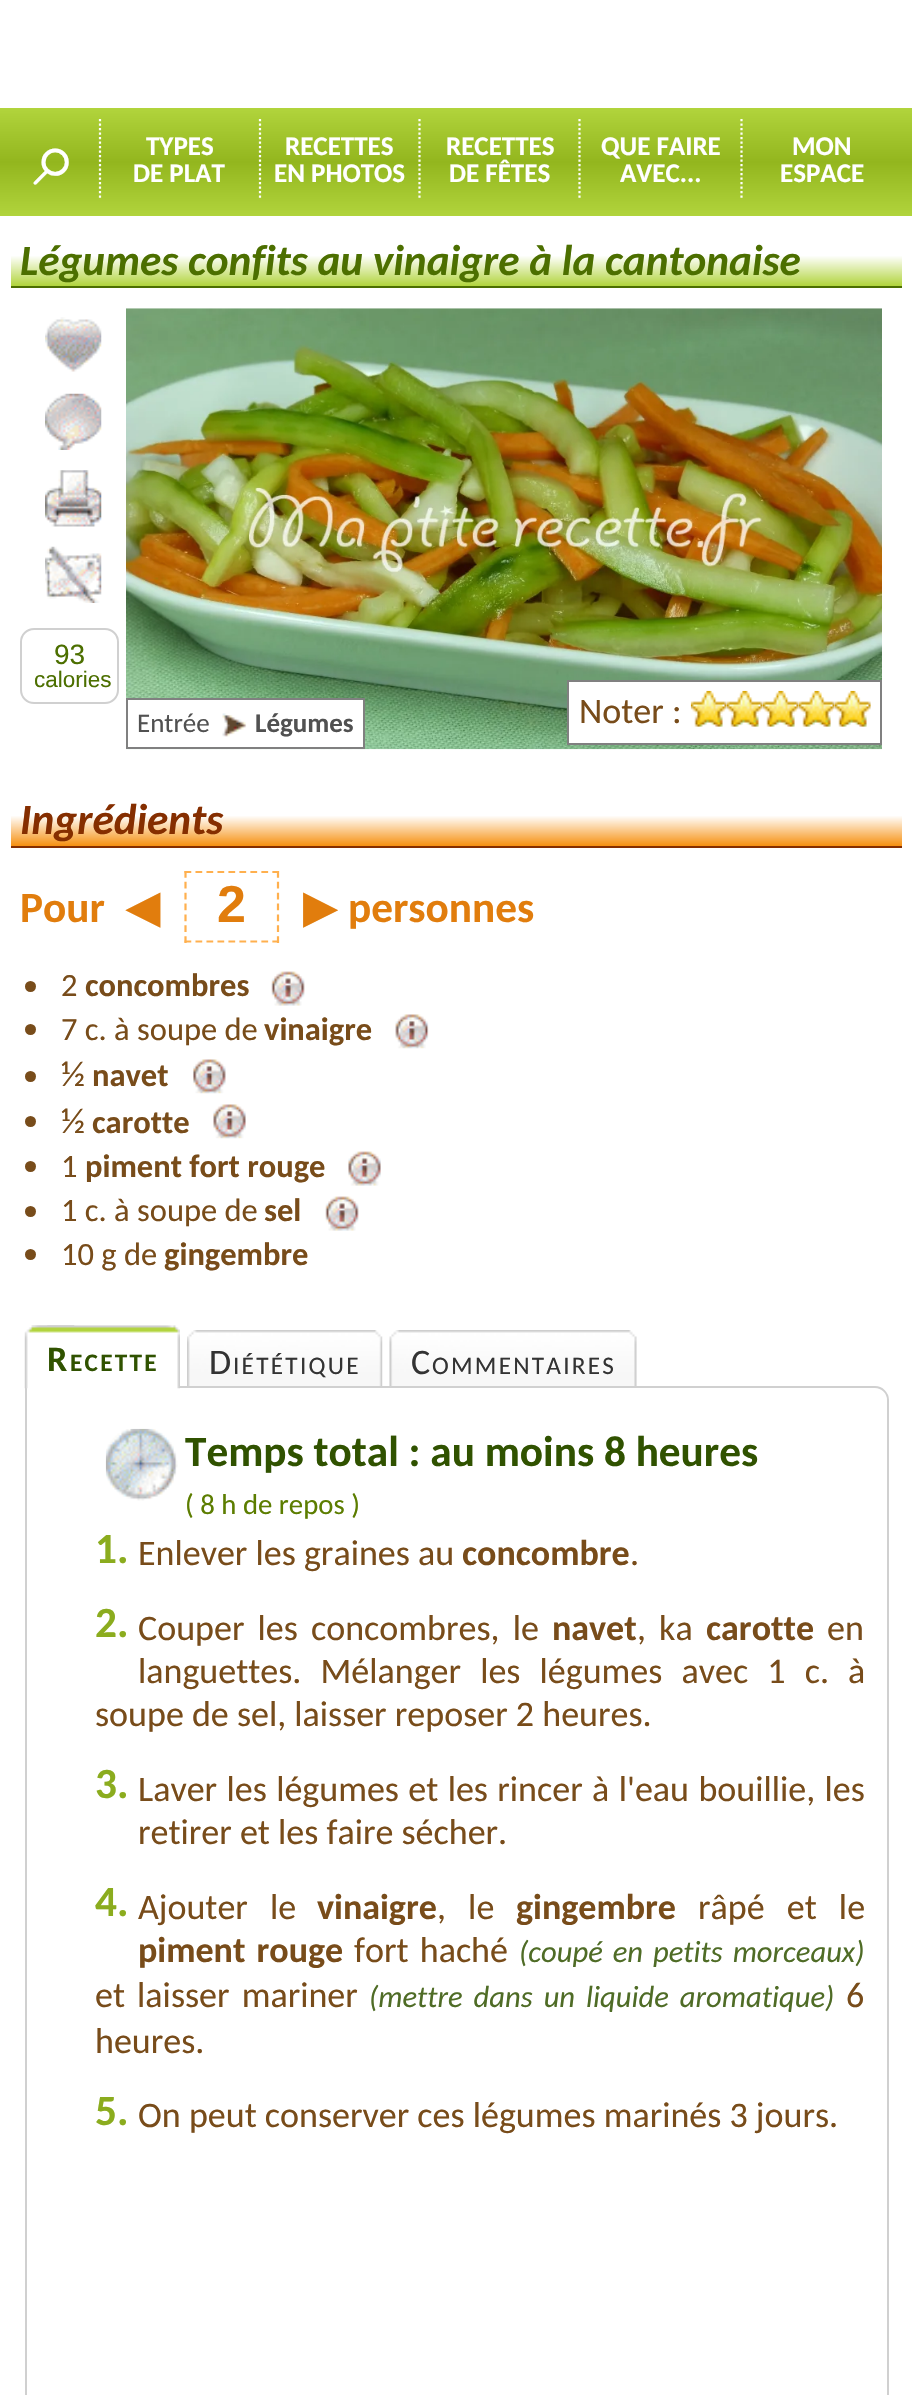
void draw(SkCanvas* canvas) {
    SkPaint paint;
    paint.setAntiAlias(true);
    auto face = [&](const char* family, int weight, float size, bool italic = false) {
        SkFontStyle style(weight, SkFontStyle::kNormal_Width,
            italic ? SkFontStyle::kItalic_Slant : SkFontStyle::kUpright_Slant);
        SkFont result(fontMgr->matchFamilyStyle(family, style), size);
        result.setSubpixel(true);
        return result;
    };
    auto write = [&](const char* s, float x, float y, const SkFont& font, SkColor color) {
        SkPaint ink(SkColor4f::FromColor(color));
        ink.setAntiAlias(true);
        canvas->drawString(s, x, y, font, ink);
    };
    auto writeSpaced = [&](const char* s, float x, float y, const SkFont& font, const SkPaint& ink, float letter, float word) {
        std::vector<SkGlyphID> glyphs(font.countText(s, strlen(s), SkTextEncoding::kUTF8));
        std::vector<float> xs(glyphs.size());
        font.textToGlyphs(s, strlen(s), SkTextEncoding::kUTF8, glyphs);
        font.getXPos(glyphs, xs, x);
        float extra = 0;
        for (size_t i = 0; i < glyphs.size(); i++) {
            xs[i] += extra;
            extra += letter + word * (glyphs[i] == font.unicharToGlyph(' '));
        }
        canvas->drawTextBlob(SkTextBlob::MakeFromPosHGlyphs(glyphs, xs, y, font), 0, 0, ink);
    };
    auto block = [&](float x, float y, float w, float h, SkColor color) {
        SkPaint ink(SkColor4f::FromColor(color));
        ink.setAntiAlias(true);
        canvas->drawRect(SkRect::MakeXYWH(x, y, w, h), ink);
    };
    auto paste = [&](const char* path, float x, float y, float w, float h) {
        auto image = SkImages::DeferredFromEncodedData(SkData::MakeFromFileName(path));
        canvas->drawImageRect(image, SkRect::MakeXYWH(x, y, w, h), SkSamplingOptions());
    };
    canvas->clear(SK_ColorWHITE);
    {
        const SkColor colors[] = {SkColorSetRGB(177, 212, 60), SkColorSetRGB(147, 182, 30), SkColorSetRGB(177, 212, 60)};
        const float stops[] = {0, 0.5f, 1};
        const SkPoint ends[] = {{457, 108}, {457, 216}};
        paint.setShader(SkGradientShader::MakeLinear(ends, colors, stops, 3, SkTileMode::kClamp));
        paint.setAlpha(255);
    }
    canvas->drawRect(SkRect::MakeXYWH(0, 108, 912, 108), paint);
    paint.setStyle(SkPaint::kStroke_Style);
    paint.setStrokeWidth(2.2f);
    paint.setShader(nullptr);
    paint.setColor(SK_ColorWHITE);
    paint.setPathEffect(SkDashPathEffect::Make({{2.25f, 2.25f}}, 0));
    canvas->drawPath(SkPathBuilder().moveTo(100, 119).lineTo(100, 200).detach(), paint);
    paint.setPathEffect(nullptr);
    auto kFont1 = face("FreeSerif", 400, 79);
    write("⌕", 33, 185, kFont1, SK_ColorWHITE);
    paint.setPathEffect(SkDashPathEffect::Make({{2.25f, 2.25f}}, 0));
    canvas->drawPath(SkPathBuilder().moveTo(260, 119).lineTo(260, 200).detach(), paint);
    paint.setPathEffect(nullptr);
    auto kFont2 = face("Carlito", 700, 27);
    write("TYPES", 146, 155, kFont2, SK_ColorWHITE);
    write("DE PLAT", 133, 182, kFont2, SK_ColorWHITE);
    paint.setPathEffect(SkDashPathEffect::Make({{2.25f, 2.25f}}, 0));
    canvas->drawPath(SkPathBuilder().moveTo(419.5f, 119).lineTo(419.5f, 200).detach(), paint);
    paint.setPathEffect(nullptr);
    write("RECETTES", 285, 155, kFont2, SK_ColorWHITE);
    write("EN PHOTOS", 274, 182, kFont2, SK_ColorWHITE);
    paint.setPathEffect(SkDashPathEffect::Make({{2.25f, 2.25f}}, 0));
    canvas->drawPath(SkPathBuilder().moveTo(579.5f, 119).lineTo(579.5f, 200).detach(), paint);
    paint.setPathEffect(nullptr);
    write("RECETTES", 446, 155, kFont2, SK_ColorWHITE);
    write("DE FÊTES", 449, 182, kFont2, SK_ColorWHITE);
    paint.setPathEffect(SkDashPathEffect::Make({{2.25f, 2.25f}}, 0));
    canvas->drawPath(SkPathBuilder().moveTo(741.5f, 119).lineTo(741.5f, 200).detach(), paint);
    paint.setPathEffect(nullptr);
    write("QUE FAIRE", 601, 155, kFont2, SK_ColorWHITE);
    write("AVEC...", 620, 182, kFont2, SK_ColorWHITE);
    write("MON", 792, 155, kFont2, SK_ColorWHITE);
    write("ESPACE", 780, 182, kFont2, SK_ColorWHITE);
    paint.setStyle(SkPaint::kFill_Style);
    {
        const SkColor colors[] = {SK_ColorWHITE, SK_ColorWHITE, SkColorSetRGB(177, 212, 60)};
        const float stops[] = {0, 0.5f, 1};
        const SkPoint ends[] = {{457, 225}, {457, 286}};
        paint.setShader(SkGradientShader::MakeLinear(ends, colors, stops, 3, SkTileMode::kClamp));
        paint.setAlpha(255);
    }
    canvas->drawRect(SkRect::MakeXYWH(11, 256, 891, 30), paint);
    block(11, 286, 891, 2, SkColorSetRGB(76, 111, 0));
    auto kFont3 = face("Carlito", 700, 43.25f, true);
    write("Légumes confits au vinaigre à la cantonaise", 20, 275, kFont3, SkColorSetRGB(76, 111, 0));
    paste("pic1.png", 45, 317, 57, 55);
    paste("pic2.png", 45, 393, 57, 57);
    paste("pic3.png", 45, 470, 57, 57);
    paste("pic4.png", 45, 546, 57, 57);
    paint.setStyle(SkPaint::kStroke_Style);
    paint.setStrokeWidth(2);
    paint.setShader(nullptr);
    paint.setColor(SkColorSetRGB(208, 208, 208));
    canvas->drawRoundRect(SkRect::MakeXYWH(21, 629, 97, 74), 13, 13, paint);
    auto kFont4 = face("Liberation Sans", 400, 28);
    write("93", 54, 664, kFont4, SkColorSetRGB(76, 111, 0));
    auto kFont5 = face("Liberation Sans", 400, 22.5f);
    write("calories", 34, 687, kFont5, SkColorSetRGB(76, 111, 0));
    paste("pic5.png", 126, 308, 756, 442);
    paint.setStyle(SkPaint::kFill_Style);
    paint.setColor(SK_ColorWHITE);
    canvas->drawRect(SkRect::MakeXYWH(127, 699, 237, 49), paint);
    paint.setStyle(SkPaint::kStroke_Style);
    paint.setColor(SkColorSetRGB(128, 128, 128));
    canvas->drawRect(SkRect::MakeXYWH(127, 699, 237, 49), paint);
    auto kFont6 = face("Carlito", 400, 27);
    write("Entrée", 137, 732, kFont6, SkColorSetRGB(81, 81, 81));
    paste("pic6.png", 222, 713, 25, 24);
    write("Légumes", 255, 732, kFont2, SkColorSetRGB(81, 81, 81));
    paint.setStyle(SkPaint::kFill_Style);
    paint.setColor(SK_ColorWHITE);
    canvas->drawRect(SkRect::MakeXYWH(568, 681, 313, 63), paint);
    paint.setStyle(SkPaint::kStroke_Style);
    paint.setColor(SkColorSetRGB(128, 128, 128));
    canvas->drawRect(SkRect::MakeXYWH(568, 681, 313, 63), paint);
    auto kFont7 = face("Carlito", 400, 36);
    write("Noter :", 579, 723, kFont7, SkColorSetRGB(120, 76, 26));
    paste("pic7.png", 690, 690, 37, 37);
    paste("pic8.png", 726, 690, 37, 37);
    paste("pic8.png", 762, 690, 37, 37);
    paste("pic9.png", 798, 690, 37, 37);
    paste("pic8.png", 834, 690, 37, 37);
    paint.setStyle(SkPaint::kFill_Style);
    {
        const SkColor colors[] = {SK_ColorWHITE, SK_ColorWHITE, SkColorSetRGB(246, 144, 16)};
        const float stops[] = {0, 0.5f, 1};
        const SkPoint ends[] = {{457, 785}, {457, 846}};
        paint.setShader(SkGradientShader::MakeLinear(ends, colors, stops, 3, SkTileMode::kClamp));
        paint.setAlpha(255);
    }
    canvas->drawRect(SkRect::MakeXYWH(11, 816, 891, 30), paint);
    block(11, 846, 891, 2, SkColorSetRGB(133, 46, 0));
    write("Ingrédients", 20, 834, kFont3, SkColorSetRGB(133, 46, 0));
    auto kFont8 = face("Carlito", 700, 43.25f);
    write("Pour", 20, 922, kFont8, SkColorSetRGB(225, 125, 13));
    auto kFont9 = face("DejaVu Sans", 700, 43.25f);
    write("◀", 126, 922, kFont9, SkColorSetRGB(225, 125, 13));
    paint.setStyle(SkPaint::kStroke_Style);
    paint.setStrokeWidth(2.2f);
    paint.setShader(nullptr);
    paint.setColor(SkColorSetRGB(255, 176, 78));
    paint.setPathEffect(SkDashPathEffect::Make({{6.75f, 4.23f}}, 0));
    canvas->drawPath(SkPathBuilder().moveTo(184.5f, 872).lineTo(279, 872).detach(), paint);
    paint.setPathEffect(nullptr);
    paint.setPathEffect(SkDashPathEffect::Make({{6.75f, 4.12f}}, 0));
    canvas->drawPath(SkPathBuilder().moveTo(278, 871).lineTo(278, 943).detach(), paint);
    paint.setPathEffect(nullptr);
    paint.setPathEffect(SkDashPathEffect::Make({{6.75f, 4.23f}}, 0));
    canvas->drawPath(SkPathBuilder().moveTo(184.5f, 941.5f).lineTo(279, 941.5f).detach(), paint);
    paint.setPathEffect(nullptr);
    paint.setPathEffect(SkDashPathEffect::Make({{6.75f, 4.12f}}, 0));
    canvas->drawPath(SkPathBuilder().moveTo(185.5f, 871).lineTo(185.5f, 943).detach(), paint);
    paint.setPathEffect(nullptr);
    auto kFont10 = face("Liberation Sans", 700, 52);
    write("2", 217, 922, kFont10, SkColorSetRGB(225, 125, 13));
    write("▶", 303, 922, kFont9, SkColorSetRGB(225, 125, 13));
    write("personnes", 348, 922, kFont8, SkColorSetRGB(225, 125, 13));
    paint.setStyle(SkPaint::kFill_Style);
    paint.setColor(SkColorSetRGB(120, 76, 26));
    canvas->drawCircle(30.5f, 986.5f, 5.5f, paint);
    auto kFont11 = face("Carlito", 400, 32.5f);
    write("2", 61, 996, kFont11, SkColorSetRGB(120, 76, 26));
    auto kFont12 = face("Carlito", 700, 32.5f);
    write("concombres", 85, 996, kFont12, SkColorSetRGB(120, 76, 26));
    paste("pic10.png", 271, 971, 34, 35);
    canvas->drawCircle(30.5f, 1029.5f, 5.5f, paint);
    write("7 c. à soupe de", 61, 1040, kFont11, SkColorSetRGB(120, 76, 26));
    write("vinaigre", 264, 1040, kFont12, SkColorSetRGB(120, 76, 26));
    paste("pic11.png", 395, 1014, 34, 35);
    canvas->drawCircle(30.5f, 1076.5f, 5.5f, paint);
    write("½", 61, 1086, kFont7, SkColorSetRGB(120, 76, 26));
    write("navet", 92, 1086, kFont12, SkColorSetRGB(120, 76, 26));
    paste("pic12.png", 193, 1059, 33, 35);
    canvas->drawCircle(30.5f, 1121.5f, 5.5f, paint);
    write("½", 61, 1133, kFont7, SkColorSetRGB(120, 76, 26));
    write("carotte", 92, 1133, kFont12, SkColorSetRGB(120, 76, 26));
    paste("pic13.png", 213, 1104, 33, 35);
    canvas->drawCircle(30.5f, 1166.5f, 5.5f, paint);
    write("1", 61, 1177, kFont11, SkColorSetRGB(120, 76, 26));
    write("piment fort rouge", 85, 1177, kFont12, SkColorSetRGB(120, 76, 26));
    paste("pic14.png", 348, 1151, 33, 35);
    canvas->drawCircle(30.5f, 1211.5f, 5.5f, paint);
    write("1 c. à soupe de", 61, 1221, kFont11, SkColorSetRGB(120, 76, 26));
    write("sel", 264, 1221, kFont12, SkColorSetRGB(120, 76, 26));
    paste("pic10.png", 325, 1196, 34, 35);
    canvas->drawCircle(30.5f, 1254.5f, 5.5f, paint);
    write("10 g de", 61, 1265, kFont11, SkColorSetRGB(120, 76, 26));
    write("gingembre", 164, 1265, kFont12, SkColorSetRGB(120, 76, 26));
    paint.setStyle(SkPaint::kStroke_Style);
    paint.setStrokeWidth(2);
    paint.setColor(SkColorSetRGB(208, 208, 208));
    canvas->drawPath(SkPathBuilder().moveTo(26, 1387).lineTo(875, 1387).cubicTo(882, 1387, 888, 1393, 888, 1400).lineTo(888, 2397).cubicTo(888, 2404, 882, 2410, 875, 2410).lineTo(39, 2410).cubicTo(32, 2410, 26, 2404, 26, 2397).close().detach(), paint);
    paste("pic15.png", 24, 1325, 51, 64);
    paste("pic16.png", 47, 1325, 133, 64);
    auto kFont13 = face("Carlito", 700, 36);
    paint.setStyle(SkPaint::kFill_Style);
    paint.setColor(SkColorSetRGB(48, 82, 0));
    writeSpaced("R", 47, 1371, kFont13, paint, 2.25f, 0);
    auto kFont14 = face("Carlito", 700, 25.25f);
    writeSpaced("ECETTE", 70, 1371, kFont14, paint, 2.25f, 0);
    paste("pic17.png", 187, 1330, 49, 56);
    paste("pic18.png", 236, 1330, 147, 56);
    paint.setColor(SkColorSetRGB(51, 51, 51));
    writeSpaced("D", 209, 1374, kFont7, paint, 2.25f, 0);
    auto kFont15 = face("Carlito", 400, 25.25f);
    writeSpaced("IÉTÉTIQUE", 233, 1374, kFont15, paint, 2.25f, 0);
    paste("pic19.png", 389, 1330, 49, 56);
    paste("pic20.png", 438, 1330, 199, 56);
    writeSpaced("C", 411, 1374, kFont7, paint, 2.25f, 0);
    writeSpaced("OMMENTAIRES", 432, 1374, kFont15, paint, 2.25f, 0);
    paste("pic21.png", 105, 1428, 73, 73);
    write("Temps total : au moins 8 heures", 185, 1466, kFont8, SkColorSetRGB(48, 82, 0));
    auto kFont16 = face("Carlito", 400, 28.75f);
    write("( 8 h de repos )", 185, 1514, kFont16, SkColorSetRGB(92, 125, 0));
    write("1.", 95, 1563, kFont8, SkColorSetRGB(139, 172, 30));
    write("Enlever les graines au", 138, 1565, kFont7, SkColorSetRGB(120, 76, 26));
    write("concombre", 462, 1565, kFont13, SkColorSetRGB(120, 76, 26));
    write(".", 630, 1565, kFont7, SkColorSetRGB(120, 76, 26));
    write("2.", 95, 1637, kFont8, SkColorSetRGB(139, 172, 30));
    paint.setColor(SkColorSetRGB(120, 76, 26));
    writeSpaced("Couper les concombres, le", 138, 1640, kFont7, paint, 0, 5);
    write("navet", 552, 1640, kFont13, SkColorSetRGB(120, 76, 26));
    writeSpaced(", ka", 637, 1640, kFont7, paint, 0, 5);
    write("carotte", 706, 1640, kFont13, SkColorSetRGB(120, 76, 26));
    write("en", 827, 1640, kFont7, SkColorSetRGB(120, 76, 26));
    writeSpaced("languettes. Mélanger les légumes avec 1 c. à", 138, 1683, kFont7, paint, 0, 11);
    write("soupe de sel, laisser reposer 2 heures.", 95, 1726, kFont7, SkColorSetRGB(120, 76, 26));
    write("3.", 95, 1798, kFont8, SkColorSetRGB(139, 172, 30));
    writeSpaced("Laver les légumes et les rincer à l'eau bouillie, les", 138, 1801, kFont7, paint, 0, 1.25f);
    write("retirer et les faire sécher.", 138, 1844, kFont7, SkColorSetRGB(120, 76, 26));
    write("4.", 95, 1916, kFont8, SkColorSetRGB(139, 172, 30));
    writeSpaced("Ajouter le", 138, 1919, kFont7, paint, 0, 14);
    write("vinaigre", 317, 1919, kFont13, SkColorSetRGB(120, 76, 26));
    writeSpaced(", le", 437, 1919, kFont7, paint, 0, 14);
    write("gingembre", 516, 1919, kFont13, SkColorSetRGB(120, 76, 26));
    writeSpaced("râpé et le", 698, 1919, kFont7, paint, 0, 14);
    writeSpaced("piment rouge", 138, 1962, kFont13, paint, 0, 3);
    writeSpaced("fort haché", 354, 1962, kFont7, paint, 0, 3);
    auto kFont17 = face("Carlito", 400, 30.6f, true);
    paint.setColor(SkColorSetRGB(79, 108, 38));
    writeSpaced("(coupé en petits morceaux)", 519, 1962, kFont17, paint, 0, 3);
    paint.setColor(SkColorSetRGB(120, 76, 26));
    writeSpaced("et laisser mariner", 95, 2007, kFont7, paint, 0, 4);
    paint.setColor(SkColorSetRGB(79, 108, 38));
    writeSpaced("(mettre dans un liquide aromatique)", 369, 2007, kFont17, paint, 0, 4);
    write("6", 846, 2007, kFont7, SkColorSetRGB(120, 76, 26));
    write("heures.", 95, 2053, kFont7, SkColorSetRGB(120, 76, 26));
    write("5.", 95, 2125, kFont8, SkColorSetRGB(139, 172, 30));
    write("On peut conserver ces légumes marinés 3 jours.", 138, 2127, kFont7, SkColorSetRGB(120, 76, 26));
}
